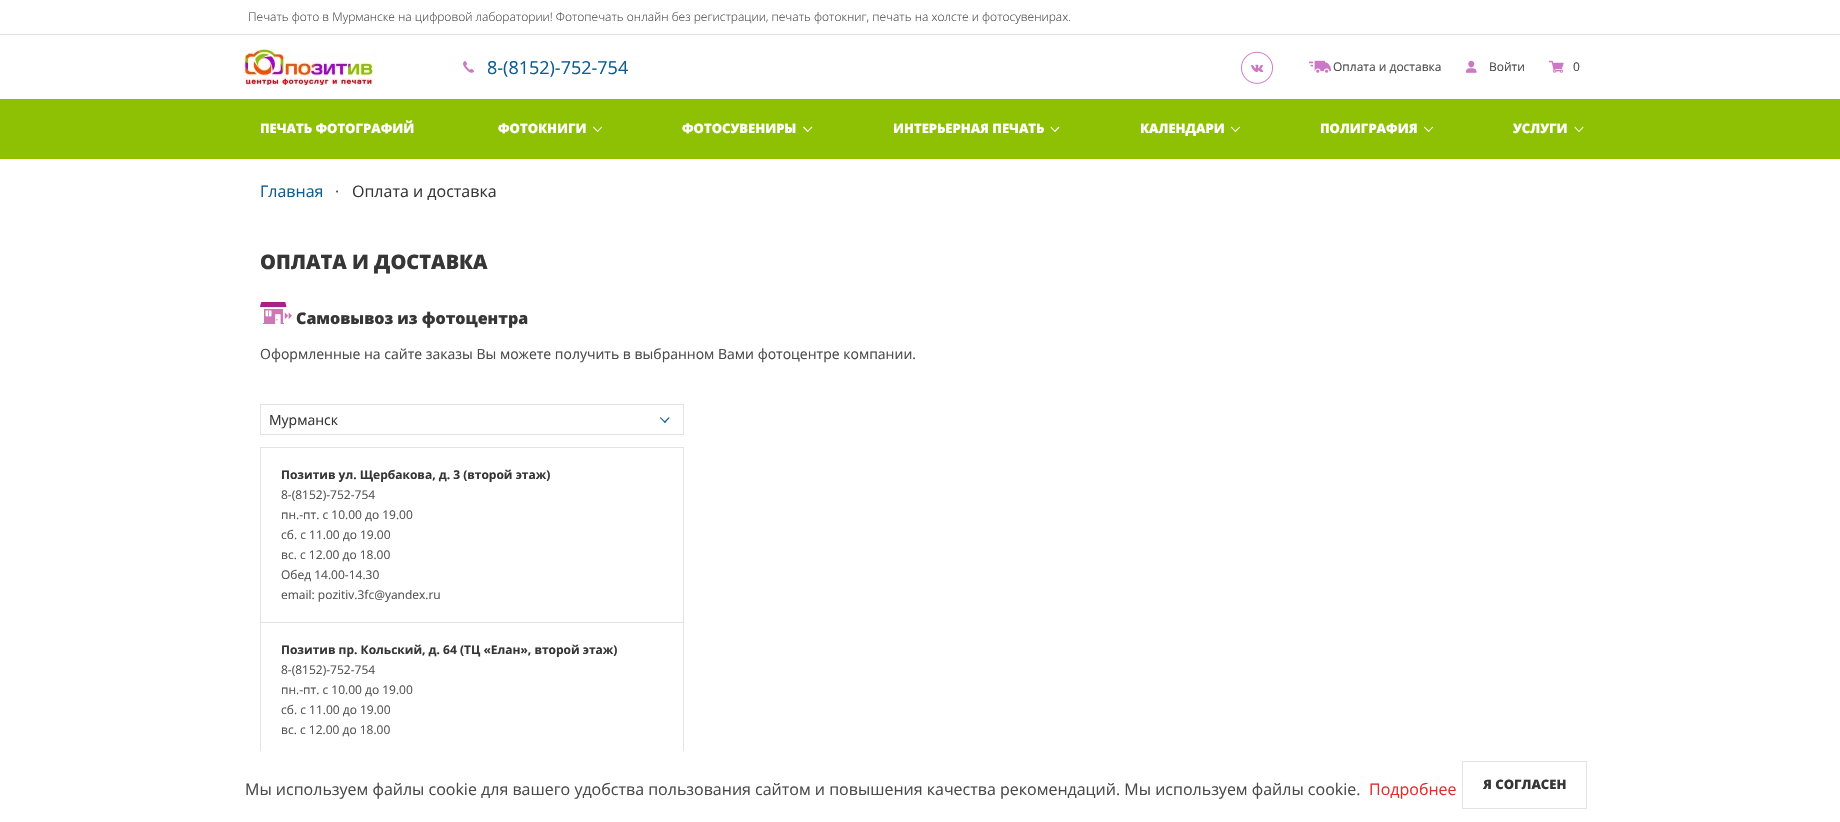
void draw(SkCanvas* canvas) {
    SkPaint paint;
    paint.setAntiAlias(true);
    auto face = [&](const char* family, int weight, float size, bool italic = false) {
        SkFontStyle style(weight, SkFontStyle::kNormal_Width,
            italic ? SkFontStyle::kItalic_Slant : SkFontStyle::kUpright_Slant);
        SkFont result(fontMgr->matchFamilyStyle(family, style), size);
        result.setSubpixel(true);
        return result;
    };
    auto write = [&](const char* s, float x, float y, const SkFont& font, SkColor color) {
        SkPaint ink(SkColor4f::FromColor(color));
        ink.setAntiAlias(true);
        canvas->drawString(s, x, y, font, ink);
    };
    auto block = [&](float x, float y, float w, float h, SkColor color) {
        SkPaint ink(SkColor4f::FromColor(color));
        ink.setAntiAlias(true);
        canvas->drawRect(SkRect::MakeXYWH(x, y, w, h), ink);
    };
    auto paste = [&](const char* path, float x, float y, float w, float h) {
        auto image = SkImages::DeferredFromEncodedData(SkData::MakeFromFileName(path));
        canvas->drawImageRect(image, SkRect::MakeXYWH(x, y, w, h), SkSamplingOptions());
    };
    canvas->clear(SK_ColorWHITE);
    block(0, 34, 1840, 1, SkColorSetRGB(227, 224, 223));
    auto kFont1 = face("Open Sans", 300, 12);
    write("Печать фото в Мурманске на цифровой лаборатории! Фотопечать онлайн без регистрации, печать фотокниг, печать на холсте и фотосувенирах.", 248, 21, kFont1, SkColorSetRGB(74, 74, 74));
    paste("pic1.png", 244, 49, 132, 36);
    paste("pic2.png", 463, 60, 12, 13);
    auto kFont2 = face("Open Sans", 400, 18);
    write("8-(8152)-752-754", 487, 74, kFont2, SkColorSetRGB(14, 92, 144));
    paste("pic3.png", 1241, 51, 32, 33);
    paste("pic4.png", 1309, 60, 22, 13);
    auto kFont3 = face("Open Sans", 400, 12);
    write("Оплата и доставка", 1333, 71, kFont3, SkColorSetRGB(74, 74, 74));
    paste("pic5.png", 1466, 60, 11, 13);
    write("Войти", 1489, 71, kFont3, SkColorSetRGB(74, 74, 74));
    paste("pic6.png", 1549, 60, 15, 13);
    write("0", 1573, 71, kFont3, SkColorSetRGB(74, 74, 74));
    block(0, 99, 1840, 60, SkColorSetRGB(142, 193, 4));
    auto kFont4 = face("Open Sans", 800, 13);
    write("ПЕЧАТЬ ФОТОГРАФИЙ", 260, 133, kFont4, SK_ColorWHITE);
    write("ФОТОКНИГИ", 498, 133, kFont4, SK_ColorWHITE);
    paint.setColor(SK_ColorWHITE);
    canvas->drawPath(SkPathBuilder().moveTo(597, 131.5f).lineTo(601.5f, 126.5f).lineTo(602, 127.5f).lineTo(597.5f, 132).close().detach(), paint);
    canvas->drawPath(SkPathBuilder().moveTo(593, 127.5f).lineTo(593.5f, 126.5f).lineTo(598.5f, 131.5f).lineTo(597.5f, 132).close().detach(), paint);
    write("ФОТОСУВЕНИРЫ", 682, 133, kFont4, SK_ColorWHITE);
    canvas->drawPath(SkPathBuilder().moveTo(807, 131.5f).lineTo(811.5f, 126.5f).lineTo(812.5f, 127.5f).lineTo(807.5f, 132).close().detach(), paint);
    canvas->drawPath(SkPathBuilder().moveTo(803, 127.5f).lineTo(804, 126.5f).lineTo(808.5f, 131.5f).lineTo(807.5f, 132).close().detach(), paint);
    write("ИНТЕРЬЕРНАЯ ПЕЧАТЬ", 893, 133, kFont4, SK_ColorWHITE);
    canvas->drawPath(SkPathBuilder().moveTo(1054, 131.5f).lineTo(1058.5f, 126.5f).lineTo(1059.5f, 127.5f).lineTo(1055, 132).close().detach(), paint);
    canvas->drawPath(SkPathBuilder().moveTo(1050.5f, 127.5f).lineTo(1051, 126.5f).lineTo(1055.5f, 131.5f).lineTo(1055, 132).close().detach(), paint);
    write("КАЛЕНДАРИ", 1140, 133, kFont4, SK_ColorWHITE);
    canvas->drawPath(SkPathBuilder().moveTo(1234.5f, 131.5f).lineTo(1239.5f, 126.5f).lineTo(1240, 127.5f).lineTo(1235.5f, 132).close().detach(), paint);
    canvas->drawPath(SkPathBuilder().moveTo(1231, 127.5f).lineTo(1231.5f, 126.5f).lineTo(1236, 131.5f).lineTo(1235.5f, 132).close().detach(), paint);
    write("ПОЛИГРАФИЯ", 1320, 133, kFont4, SK_ColorWHITE);
    canvas->drawPath(SkPathBuilder().moveTo(1428, 131.5f).lineTo(1432.5f, 126.5f).lineTo(1433, 127.5f).lineTo(1428.5f, 132).close().detach(), paint);
    canvas->drawPath(SkPathBuilder().moveTo(1424, 127.5f).lineTo(1424.5f, 126.5f).lineTo(1429.5f, 131.5f).lineTo(1428.5f, 132).close().detach(), paint);
    write("УСЛУГИ", 1513, 133, kFont4, SK_ColorWHITE);
    canvas->drawPath(SkPathBuilder().moveTo(1578.5f, 131.5f).lineTo(1583, 126.5f).lineTo(1583.5f, 127.5f).lineTo(1579, 132).close().detach(), paint);
    canvas->drawPath(SkPathBuilder().moveTo(1574.5f, 127.5f).lineTo(1575, 126.5f).lineTo(1579.5f, 131.5f).lineTo(1579, 132).close().detach(), paint);
    auto kFont5 = face("Open Sans", 400, 16);
    write("Главная", 260, 197, kFont5, SkColorSetRGB(14, 92, 144));
    write("·", 335, 197, kFont5, SkColorSetRGB(74, 74, 74));
    write("Оплата и доставка", 352, 197, kFont5, SkColorSetRGB(54, 54, 54));
    auto kFont6 = face("Open Sans", 800, 20);
    write("ОПЛАТА И ДОСТАВКА", 260, 269, kFont6, SkColorSetRGB(54, 54, 54));
    paste("pic7.png", 260, 302, 32, 22);
    auto kFont7 = face("Open Sans", 800, 16);
    write("Самовывоз из фотоцентра", 296, 324, kFont7, SkColorSetRGB(54, 54, 54));
    auto kFont8 = face("Open Sans", 400, 14);
    write("Оформленные на сайте заказы Вы можете получить в выбранном Вами фотоцентре компании.", 260, 359, kFont8, SkColorSetRGB(74, 74, 74));
    paint.setStyle(SkPaint::kStroke_Style);
    paint.setStrokeWidth(1);
    paint.setColor(SkColorSetRGB(229, 226, 225));
    canvas->drawRect(SkRect::MakeXYWH(260.5f, 404.5f, 423, 30), paint);
    write("Мурманск", 269, 425, kFont8, SkColorSetRGB(54, 54, 54));
    paint.setStyle(SkPaint::kFill_Style);
    paint.setColor(SkColorSetRGB(14, 92, 144));
    canvas->drawPath(SkPathBuilder().moveTo(664, 422).lineTo(669, 417).lineTo(669.5f, 418).lineTo(665, 423).close().detach(), paint);
    canvas->drawPath(SkPathBuilder().moveTo(660, 418).lineTo(660.5f, 417).lineTo(665.5f, 422).lineTo(665, 423).close().detach(), paint);
    paint.setStyle(SkPaint::kStroke_Style);
    paint.setColor(SkColorSetRGB(229, 226, 225));
    canvas->drawRect(SkRect::MakeXYWH(260.5f, 447.5f, 423, 175), paint);
    auto kFont9 = face("Open Sans", 700, 12);
    write("Позитив ул. Щербакова, д. 3 (второй этаж)", 281, 479, kFont9, SkColorSetRGB(54, 54, 54));
    write("8-(8152)-752-754", 281, 499, kFont3, SkColorSetRGB(83, 83, 83));
    write("пн.-пт. с 10.00 до 19.00", 281, 519, kFont3, SkColorSetRGB(83, 83, 83));
    write("сб. с 11.00 до 19.00", 281, 539, kFont3, SkColorSetRGB(83, 83, 83));
    write("вс. с 12.00 до 18.00", 281, 559, kFont3, SkColorSetRGB(83, 83, 83));
    write("Обед 14.00-14.30", 281, 579, kFont3, SkColorSetRGB(83, 83, 83));
    write("email: pozitiv.3fc@yandex.ru", 281, 599, kFont3, SkColorSetRGB(83, 83, 83));
    block(683, 623, 1, 128, SkColorSetRGB(229, 226, 225));
    block(260, 623, 1, 128, SkColorSetRGB(229, 226, 225));
    write("Позитив пр. Кольский, д. 64 (ТЦ «Елан», второй этаж)", 281, 654, kFont9, SkColorSetRGB(54, 54, 54));
    write("8-(8152)-752-754", 281, 674, kFont3, SkColorSetRGB(83, 83, 83));
    write("пн.-пт. с 10.00 до 19.00", 281, 694, kFont3, SkColorSetRGB(83, 83, 83));
    write("сб. с 11.00 до 19.00", 281, 714, kFont3, SkColorSetRGB(83, 83, 83));
    write("вс. с 12.00 до 18.00", 281, 734, kFont3, SkColorSetRGB(83, 83, 83));
    write("Мы используем файлы cookie для вашего удобства пользования сайтом и повышения качества рекомендаций. Мы используем файлы cookie.", 245, 795, kFont5, SkColorSetRGB(74, 74, 74));
    write("Подробнее", 1369, 795, kFont5, SkColorSetRGB(225, 45, 45));
    canvas->drawRect(SkRect::MakeXYWH(1462.5f, 761.5f, 124, 47), paint);
    write("Я СОГЛАСЕН", 1483, 789, kFont4, SkColorSetRGB(54, 54, 54));
}
